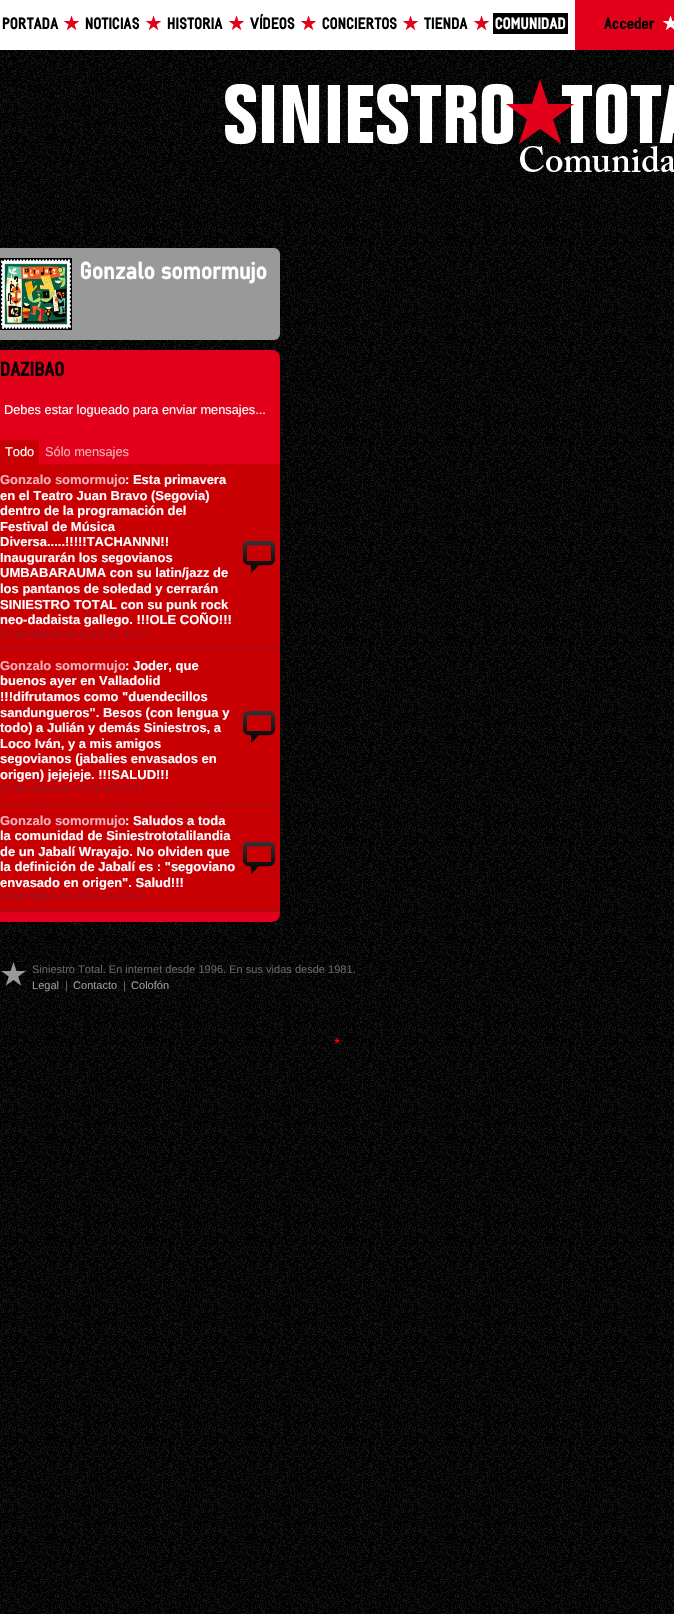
void draw(SkCanvas* canvas) {
    SkPaint paint;
    paint.setAntiAlias(true);
    auto face = [&](const char* family, int weight, float size, bool italic = false) {
        SkFontStyle style(weight, SkFontStyle::kNormal_Width,
            italic ? SkFontStyle::kItalic_Slant : SkFontStyle::kUpright_Slant);
        SkFont result(fontMgr->matchFamilyStyle(family, style), size);
        result.setSubpixel(true);
        return result;
    };
    auto write = [&](const char* s, float x, float y, const SkFont& font, SkColor color) {
        SkPaint ink(SkColor4f::FromColor(color));
        ink.setAntiAlias(true);
        canvas->drawString(s, x, y, font, ink);
    };
    auto block = [&](float x, float y, float w, float h, SkColor color) {
        SkPaint ink(SkColor4f::FromColor(color));
        ink.setAntiAlias(true);
        canvas->drawRect(SkRect::MakeXYWH(x, y, w, h), ink);
    };
    auto card = [&](float x, float y, float w, float h, float radius, SkColor color) {
        SkPaint ink(SkColor4f::FromColor(color));
        ink.setAntiAlias(true);
        canvas->drawRoundRect(SkRect::MakeXYWH(x, y, w, h), radius, radius, ink);
    };
    auto paste = [&](const char* path, float x, float y, float w, float h) {
        auto image = SkImages::DeferredFromEncodedData(SkData::MakeFromFileName(path));
        canvas->drawImageRect(image, SkRect::MakeXYWH(x, y, w, h), SkSamplingOptions());
    };
    canvas->clear(SK_ColorWHITE);
    paste("pic1.png", 0, 50, 674, 1564);
    paste("pic2.png", 64, 16, 15, 15);
    auto kFont1 = face("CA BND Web", 700, 16);
    write("PORTADA", 2, 29, kFont1, SK_ColorBLACK);
    paste("pic2.png", 146, 16, 15, 15);
    write("NOTICIAS", 85, 29, kFont1, SK_ColorBLACK);
    paste("pic2.png", 229, 16, 15, 15);
    write("HISTORIA", 167, 29, kFont1, SK_ColorBLACK);
    paste("pic2.png", 301, 16, 15, 15);
    write("VÍDEOS", 250, 29, kFont1, SK_ColorBLACK);
    paste("pic2.png", 403, 16, 15, 15);
    write("CONCIERTOS", 322, 29, kFont1, SK_ColorBLACK);
    paste("pic2.png", 474, 16, 15, 15);
    write("TIENDA", 424, 29, kFont1, SK_ColorBLACK);
    block(493, 13, 75, 21, SK_ColorBLACK);
    write("COMUNIDAD", 495, 29, kFont1, SK_ColorWHITE);
    block(575, 0, 99, 50, SkColorSetRGB(226, 0, 26));
    paste("pic3.png", 663, 15, 11, 15);
    write("Acceder", 604, 29, kFont1, SK_ColorBLACK);
    paste("pic4.png", 225, 80, 449, 92);
    card(-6, 248, 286, 92, 6, SkColorSetRGB(153, 153, 153));
    paint.setStyle(SkPaint::kStroke_Style);
    paint.setStrokeWidth(1);
    paint.setColor(SK_ColorBLACK);
    canvas->drawRect(SkRect::MakeXYWH(0.5f, 258.5f, 71, 71), paint);
    paste("pic5.png", 1, 259, 70, 70);
    auto kFont2 = face("CA BND Web", 700, 24);
    write("Gonzalo somormujo", 80, 279, kFont2, SK_ColorWHITE);
    card(-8, 350, 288, 572, 8, SkColorSetRGB(226, 0, 26));
    auto kFont3 = face("CA BND Web", 700, 20);
    write("DAZIBAO", 0, 376, kFont3, SK_ColorBLACK);
    auto kFont4 = face("Liberation Sans", 400, 12.8f);
    write("Debes estar logueado para enviar mensajes...", 4, 414, kFont4, SK_ColorWHITE);
    block(0, 440, 39, 24, SkColorSetRGB(200, 0, 3));
    write("Todo", 5, 456, kFont4, SK_ColorWHITE);
    write("Sólo mensajes", 45, 456, kFont4, SkColorSetRGB(246, 178, 186));
    block(0, 464, 280, 185, SkColorSetRGB(200, 0, 3));
    paste("pic6.png", 243, 541, 32, 32);
    block(0, 649, 280, 1, SkColorSetRGB(150, 15, 30));
    auto kFont5 = face("Liberation Sans", 700, 13);
    write("Gonzalo somormujo", 0, 484, kFont5, SkColorSetRGB(246, 178, 186));
    write(": Esta primavera", 125, 484, kFont5, SK_ColorWHITE);
    write("en el Teatro Juan Bravo (Segovia)", 0, 500, kFont5, SK_ColorWHITE);
    write("dentro de la programación del", 0, 515, kFont5, SK_ColorWHITE);
    write("Festival de Música", 0, 531, kFont5, SK_ColorWHITE);
    write("Diversa.....!!!!!TACHANNN!!", 0, 546, kFont5, SK_ColorWHITE);
    write("Inaugurarán los segovianos", 0, 562, kFont5, SK_ColorWHITE);
    write("UMBABARAUMA con su latin/jazz de", 0, 577, kFont5, SK_ColorWHITE);
    write("los pantanos de soledad y cerrarán", 0, 593, kFont5, SK_ColorWHITE);
    write("SINIESTRO TOTAL con su punk rock", 0, 609, kFont5, SK_ColorWHITE);
    write("neo-dadaista gallego. !!!OLE COÑO!!!", 0, 624, kFont5, SK_ColorWHITE);
    auto kFont6 = face("Liberation Sans", 400, 11.05f);
    write("21 de Marzo de 2013 ás 11:27", 0, 638, kFont6, SkColorSetRGB(150, 15, 30));
    block(0, 650, 280, 154, SkColorSetRGB(200, 0, 3));
    paste("pic6.png", 243, 711, 32, 32);
    block(0, 804, 280, 1, SkColorSetRGB(150, 15, 30));
    write("Gonzalo somormujo", 0, 670, kFont5, SkColorSetRGB(246, 178, 186));
    write(": Joder, que", 125, 670, kFont5, SK_ColorWHITE);
    write("buenos ayer en Valladolid", 0, 685, kFont5, SK_ColorWHITE);
    write("!!!difrutamos como \"duendecillos", 0, 701, kFont5, SK_ColorWHITE);
    write("sandungueros\". Besos (con lengua y", 0, 717, kFont5, SK_ColorWHITE);
    write("todo) a Julián y demás Siniestros, a", 0, 732, kFont5, SK_ColorWHITE);
    write("Loco Iván, y a mis amigos", 0, 748, kFont5, SK_ColorWHITE);
    write("segovianos (jabalies envasados en", 0, 763, kFont5, SK_ColorWHITE);
    write("origen) jejejeje. !!!SALUD!!!", 0, 779, kFont5, SK_ColorWHITE);
    write("24 de Junio de 2011 ás 13:11", 0, 792, kFont6, SkColorSetRGB(150, 15, 30));
    block(0, 805, 280, 106, SkColorSetRGB(200, 0, 3));
    paste("pic6.png", 243, 842, 32, 32);
    block(0, 911, 280, 1, SkColorSetRGB(150, 15, 30));
    write("Gonzalo somormujo", 0, 825, kFont5, SkColorSetRGB(246, 178, 186));
    write(": Saludos a toda", 125, 825, kFont5, SK_ColorWHITE);
    write("la comunidad de Siniestrototalilandia", 0, 840, kFont5, SK_ColorWHITE);
    write("de un Jabalí Wrayajo. No olviden que", 0, 856, kFont5, SK_ColorWHITE);
    write("la definición de Jabalí es : \"segoviano", 0, 871, kFont5, SK_ColorWHITE);
    write("envasado en origen\". Salud!!!", 0, 887, kFont5, SK_ColorWHITE);
    write("12 de Mayo de 2011 ás 13:11", 0, 900, kFont6, SkColorSetRGB(150, 15, 30));
    paste("pic7.png", 0, 962, 26, 24);
    write("Siniestro Total. En internet desde 1996. En sus vidas desde 1981.", 32, 973, kFont6, SkColorSetRGB(102, 102, 102));
    write("Legal", 32, 989, kFont6, SkColorSetRGB(153, 153, 153));
    write("|", 65, 989, kFont6, SkColorSetRGB(102, 102, 102));
    write("Contacto", 73, 989, kFont6, SkColorSetRGB(153, 153, 153));
    write("|", 123, 989, kFont6, SkColorSetRGB(102, 102, 102));
    write("Colofón", 131, 989, kFont6, SkColorSetRGB(153, 153, 153));
    auto kFont7 = face("Liberation Sans", 400, 16);
    write("*", 334, 1049, kFont7, SkColorSetRGB(255, 0, 0));
}
